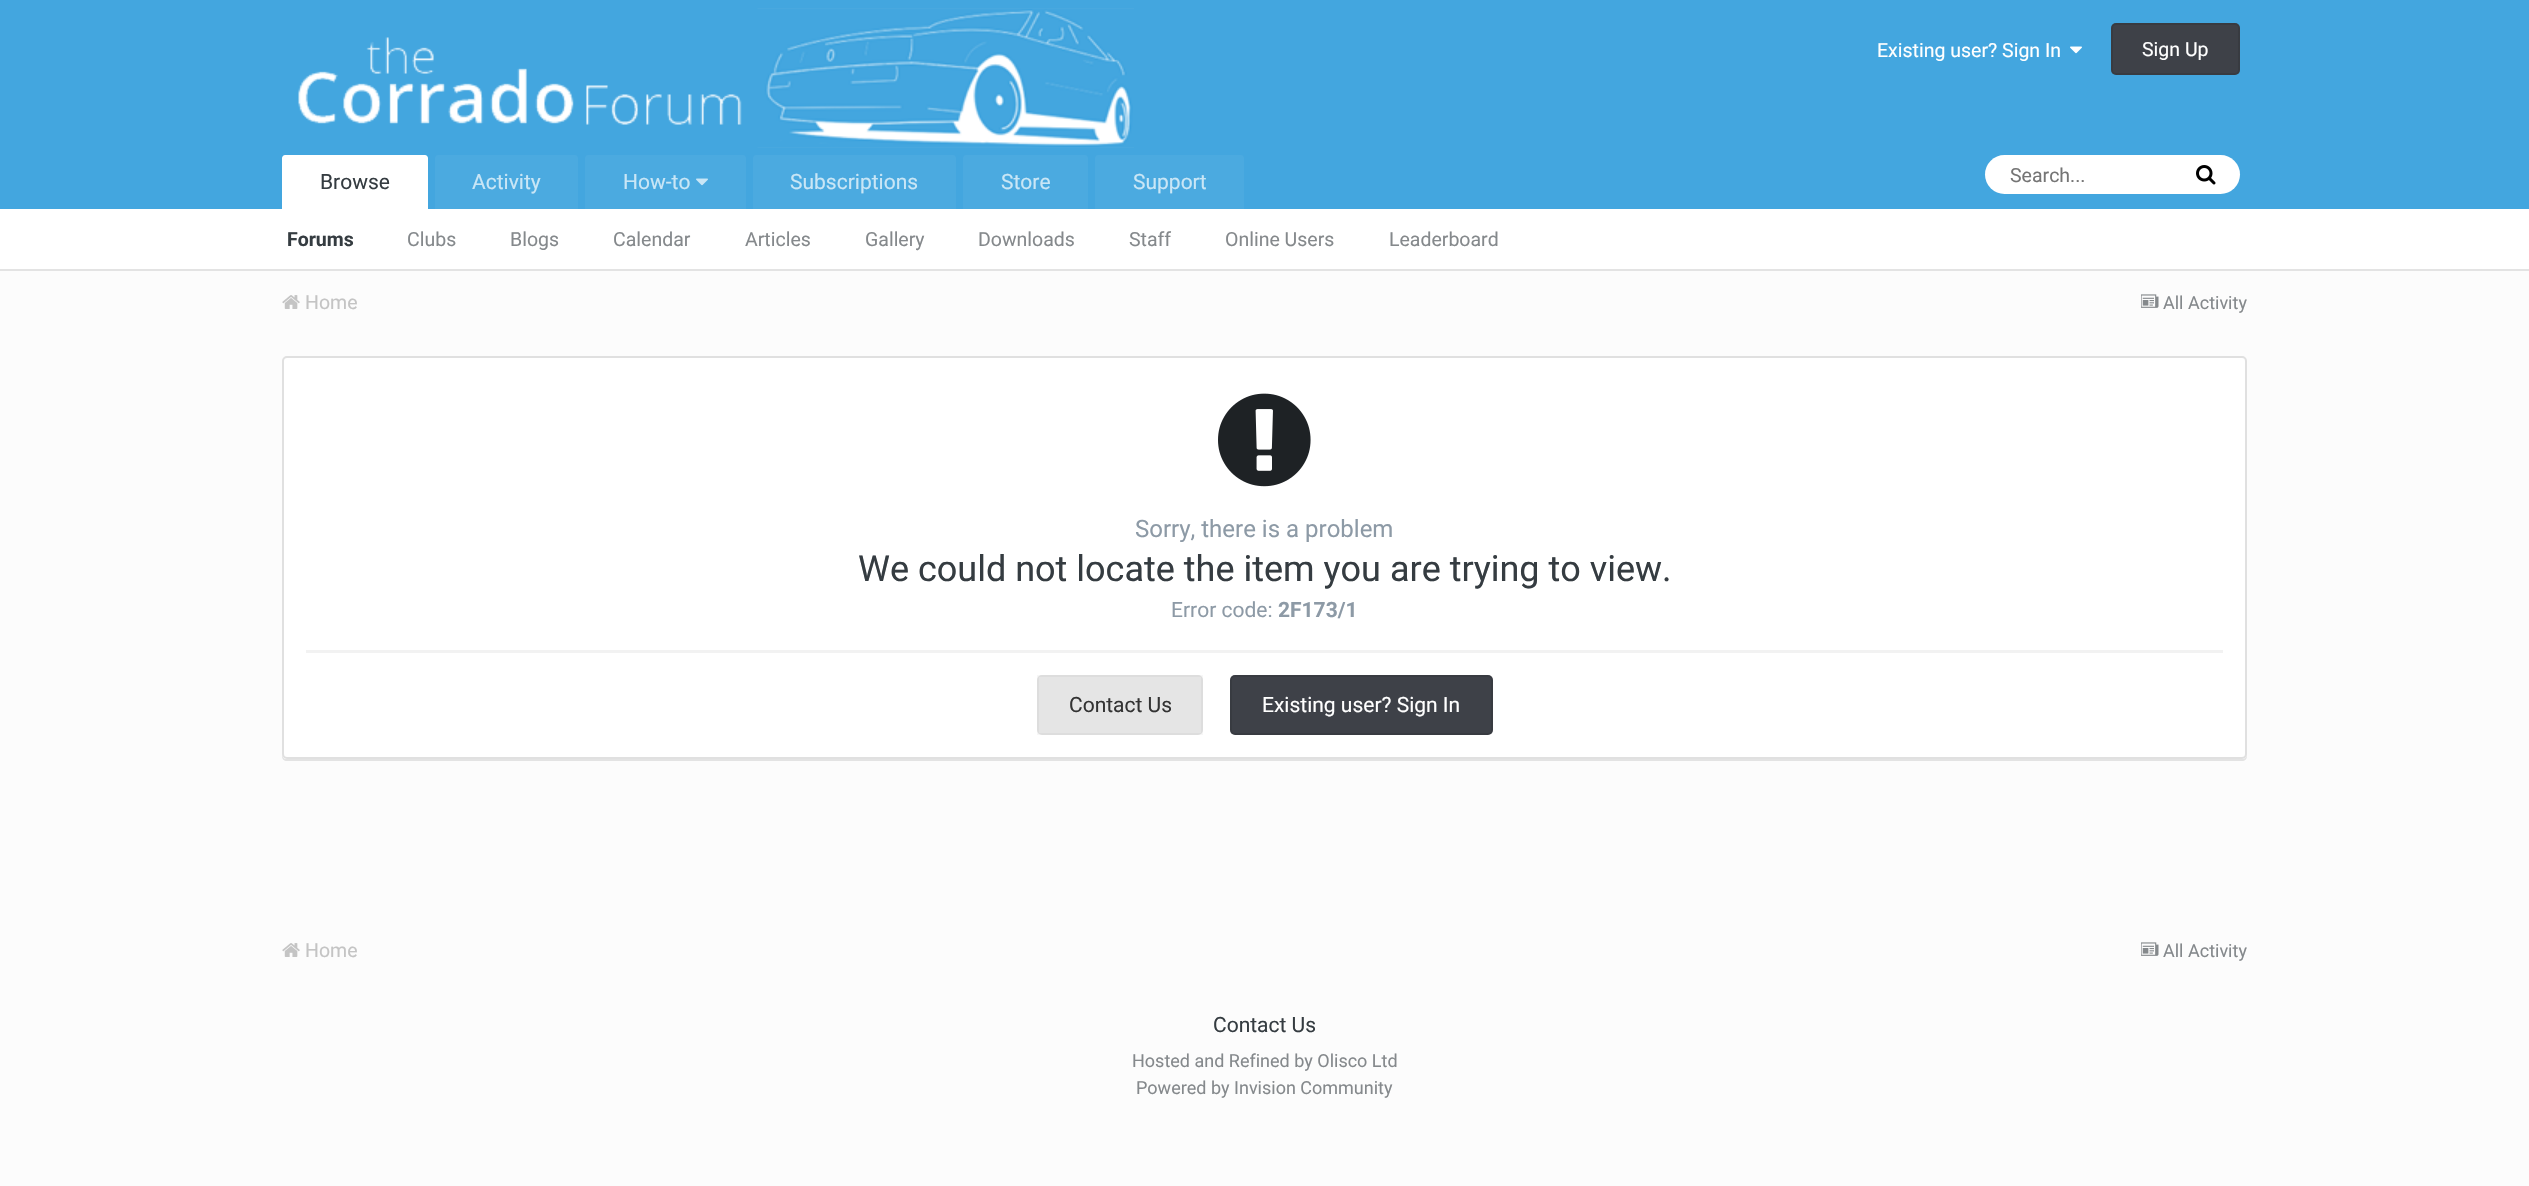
void draw(SkCanvas* canvas) {
    SkPaint paint;
    paint.setAntiAlias(true);
    auto face = [&](const char* family, int weight, float size, bool italic = false) {
        SkFontStyle style(weight, SkFontStyle::kNormal_Width,
            italic ? SkFontStyle::kItalic_Slant : SkFontStyle::kUpright_Slant);
        SkFont result(fontMgr->matchFamilyStyle(family, style), size);
        result.setSubpixel(true);
        return result;
    };
    auto write = [&](const char* s, float x, float y, const SkFont& font, SkColor color) {
        SkPaint ink(SkColor4f::FromColor(color));
        ink.setAntiAlias(true);
        canvas->drawString(s, x, y, font, ink);
    };
    auto block = [&](float x, float y, float w, float h, SkColor color) {
        SkPaint ink(SkColor4f::FromColor(color));
        ink.setAntiAlias(true);
        canvas->drawRect(SkRect::MakeXYWH(x, y, w, h), ink);
    };
    auto card = [&](float x, float y, float w, float h, float radius, SkColor color) {
        SkPaint ink(SkColor4f::FromColor(color));
        ink.setAntiAlias(true);
        canvas->drawRoundRect(SkRect::MakeXYWH(x, y, w, h), radius, radius, ink);
    };
    auto paste = [&](const char* path, float x, float y, float w, float h) {
        auto image = SkImages::DeferredFromEncodedData(SkData::MakeFromFileName(path));
        canvas->drawImageRect(image, SkRect::MakeXYWH(x, y, w, h), SkSamplingOptions());
    };
    canvas->clear(SkColorSetRGB(252, 252, 252));
    block(0, 269, 2529, 2, SkColorSetRGB(227, 227, 227));
    block(0, 0, 2529, 209, SkColorSetRGB(67, 166, 223));
    paste("pic1.png", 298, 8, 836, 140);
    auto kFont1 = face("Roboto", 400, 19.5f);
    write("Existing user? Sign In", 1877, 57, kFont1, SK_ColorWHITE);
    paste("pic2.png", 2070, 46, 12, 8);
    card(2111, 23, 129, 52, 5, SkColorSetRGB(62, 65, 72));
    paint.setStyle(SkPaint::kStroke_Style);
    paint.setStrokeWidth(2);
    paint.setColor(SkColorSetARGB(26, 0, 0, 0));
    canvas->drawRoundRect(SkRect::MakeXYWH(2112, 24, 127, 50), 4, 4, paint);
    write("Sign Up", 2142, 56, kFont1, SK_ColorWHITE);
    block(0, 209, 2529, 60, SK_ColorWHITE);
    paint.setStyle(SkPaint::kFill_Style);
    paint.setColor(SkColorSetRGB(75, 170, 224));
    canvas->drawPath(SkPathBuilder().moveTo(438, 155).lineTo(575, 155).cubicTo(576.5f, 155, 578, 156.5f, 578, 158).lineTo(578, 209).lineTo(435, 209).lineTo(435, 158).cubicTo(435, 156.5f, 436.5f, 155, 438, 155).close().detach(), paint);
    auto kFont2 = face("Roboto", 400, 21);
    write("Activity", 472, 189, kFont2, SkColorSetRGB(201, 230, 246));
    canvas->drawPath(SkPathBuilder().moveTo(756, 155).lineTo(953, 155).cubicTo(954.5f, 155, 956, 156.5f, 956, 158).lineTo(956, 209).lineTo(753, 209).lineTo(753, 158).cubicTo(753, 156.5f, 754.5f, 155, 756, 155).close().detach(), paint);
    write("Subscriptions", 790, 189, kFont2, SkColorSetRGB(201, 230, 246));
    canvas->drawPath(SkPathBuilder().moveTo(966, 155).lineTo(1085, 155).cubicTo(1086.5f, 155, 1088, 156.5f, 1088, 158).lineTo(1088, 209).lineTo(963, 209).lineTo(963, 158).cubicTo(963, 156.5f, 964.5f, 155, 966, 155).close().detach(), paint);
    write("Store", 1001, 189, kFont2, SkColorSetRGB(201, 230, 246));
    canvas->drawPath(SkPathBuilder().moveTo(1098, 155).lineTo(1241, 155).cubicTo(1242.5f, 155, 1244, 156.5f, 1244, 158).lineTo(1244, 209).lineTo(1095, 209).lineTo(1095, 158).cubicTo(1095, 156.5f, 1096.5f, 155, 1098, 155).close().detach(), paint);
    write("Support", 1133, 189, kFont2, SkColorSetRGB(201, 230, 246));
    paint.setColor(SK_ColorWHITE);
    canvas->drawPath(SkPathBuilder().moveTo(285, 155).lineTo(425, 155).cubicTo(426.5f, 155, 428, 156.5f, 428, 158).lineTo(428, 209).lineTo(282, 209).lineTo(282, 158).cubicTo(282, 156.5f, 283.5f, 155, 285, 155).close().detach(), paint);
    write("Browse", 320, 189, kFont2, SkColorSetRGB(53, 60, 65));
    auto kFont3 = face("Roboto", 700, 19.5f);
    write("Forums", 287, 246, kFont3, SkColorSetRGB(53, 60, 65));
    write("Clubs", 407, 246, kFont1, SkColorSetRGB(133, 137, 140));
    write("Blogs", 510, 246, kFont1, SkColorSetRGB(133, 137, 140));
    write("Calendar", 613, 246, kFont1, SkColorSetRGB(133, 137, 140));
    write("Articles", 745, 246, kFont1, SkColorSetRGB(133, 137, 140));
    write("Gallery", 865, 246, kFont1, SkColorSetRGB(133, 137, 140));
    write("Downloads", 978, 246, kFont1, SkColorSetRGB(133, 137, 140));
    write("Staff", 1129, 246, kFont1, SkColorSetRGB(133, 137, 140));
    write("Online Users", 1225, 246, kFont1, SkColorSetRGB(133, 137, 140));
    write("Leaderboard", 1389, 246, kFont1, SkColorSetRGB(133, 137, 140));
    paint.setColor(SkColorSetRGB(75, 170, 224));
    canvas->drawPath(SkPathBuilder().moveTo(588, 155).lineTo(743, 155).cubicTo(744.5f, 155, 746, 156.5f, 746, 158).lineTo(746, 209).lineTo(585, 209).lineTo(585, 158).cubicTo(585, 156.5f, 586.5f, 155, 588, 155).close().detach(), paint);
    write("How-to", 623, 189, kFont2, SkColorSetRGB(201, 230, 246));
    paste("pic3.png", 696, 178, 12, 8);
    card(1985, 155, 255, 39, 19.5f, SK_ColorWHITE);
    write("Search...", 2010, 182, kFont1, SkColorSetRGB(117, 117, 117));
    paste("pic4.png", 2196, 165, 20, 20);
    paste("pic5.png", 282, 295, 18, 14);
    write("Home", 305, 309, kFont1, SkColorSetRGB(196, 196, 196));
    paste("pic6.png", 2141, 294, 18, 14);
    auto kFont4 = face("Roboto", 400, 18);
    write("All Activity", 2163, 309, kFont4, SkColorSetRGB(133, 137, 140));
    paint.setColor(SkColorSetRGB(227, 227, 227));
    canvas->drawPath(SkPathBuilder().moveTo(282, 754).lineTo(282, 756).cubicTo(282, 759, 284, 761, 287, 761).lineTo(2242, 761).cubicTo(2245, 761, 2247, 759, 2247, 756).lineTo(2247, 754).cubicTo(2247, 757, 2245, 759, 2242, 759).lineTo(286, 759).cubicTo(284, 759, 282, 757, 282, 754).close().detach(), paint);
    paint.setColor(SK_ColorWHITE);
    canvas->drawRoundRect(SkRect::MakeXYWH(283, 357, 1963, 401), 4, 4, paint);
    paint.setStyle(SkPaint::kStroke_Style);
    paint.setColor(SkColorSetRGB(224, 224, 224));
    canvas->drawRoundRect(SkRect::MakeXYWH(283, 357, 1963, 401), 4, 4, paint);
    paste("pic7.png", 1218, 393, 93, 94);
    auto kFont5 = face("Roboto", 400, 24);
    write("Sorry, there is a problem", 1135, 537, kFont5, SkColorSetRGB(141, 154, 166));
    auto kFont6 = face("Roboto", 400, 36);
    write("We could not locate the item you are trying to view.", 858, 581, kFont6, SkColorSetRGB(53, 60, 65));
    write("Error code:", 1171, 617, kFont2, SkColorSetRGB(141, 154, 166));
    auto kFont7 = face("Roboto", 700, 21);
    write("2F173/1", 1278, 617, kFont7, SkColorSetRGB(141, 154, 166));
    block(306, 650, 1917, 3, SkColorSetRGB(242, 242, 242));
    card(1037, 675, 166, 60, 5, SkColorSetRGB(229, 229, 229));
    paint.setColor(SkColorSetARGB(8, 0, 0, 0));
    canvas->drawRect(SkRect::MakeXYWH(1038, 676, 164, 58), paint);
    write("Contact Us", 1069, 712, kFont2, SkColorSetRGB(51, 51, 51));
    card(1230, 675, 263, 60, 5, SkColorSetRGB(62, 65, 72));
    paint.setColor(SkColorSetARGB(26, 0, 0, 0));
    canvas->drawRoundRect(SkRect::MakeXYWH(1231, 676, 261, 58), 4, 4, paint);
    write("Existing user? Sign In", 1262, 712, kFont2, SK_ColorWHITE);
    paste("pic5.png", 282, 943, 18, 14);
    write("Home", 305, 957, kFont1, SkColorSetRGB(196, 196, 196));
    paste("pic6.png", 2141, 942, 18, 14);
    write("All Activity", 2163, 957, kFont4, SkColorSetRGB(133, 137, 140));
    write("Contact Us", 1213, 1032, kFont2, SkColorSetRGB(53, 60, 65));
    write("Hosted and Refined by Olisco Ltd", 1132, 1067, kFont4, SkColorSetRGB(133, 137, 140));
    write("Powered by Invision Community", 1136, 1094, kFont4, SkColorSetRGB(133, 137, 140));
}
